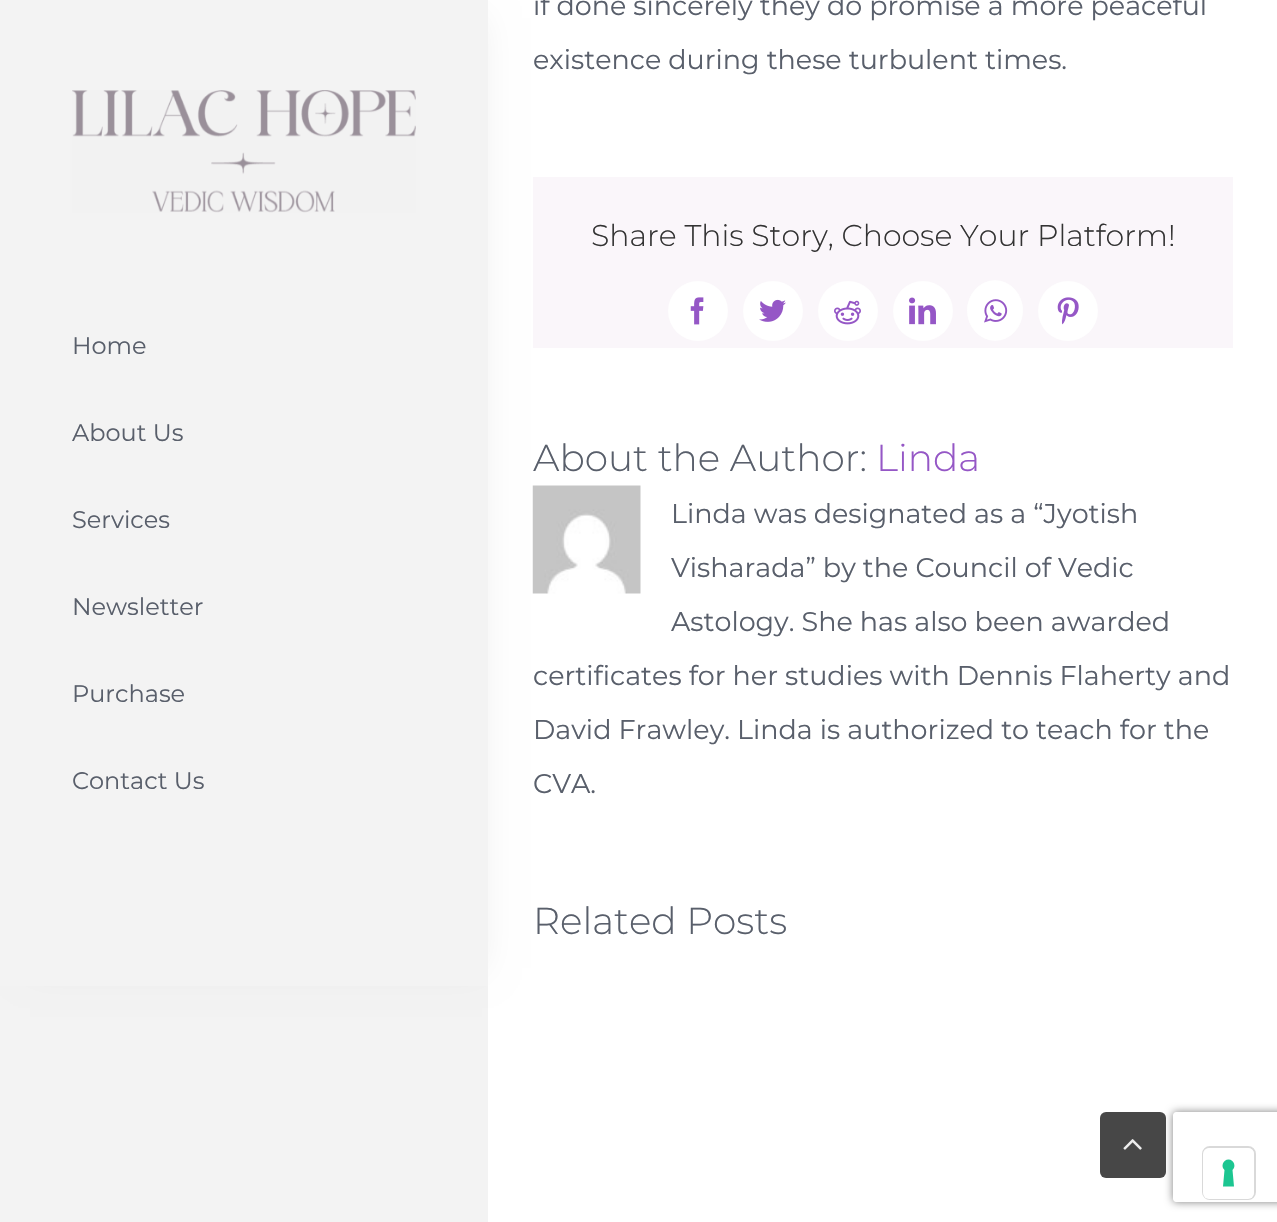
void draw(SkCanvas* canvas) {
    SkPaint paint;
    paint.setAntiAlias(true);
    auto face = [&](const char* family, int weight, float size, bool italic = false) {
        SkFontStyle style(weight, SkFontStyle::kNormal_Width,
            italic ? SkFontStyle::kItalic_Slant : SkFontStyle::kUpright_Slant);
        SkFont result(fontMgr->matchFamilyStyle(family, style), size);
        result.setSubpixel(true);
        return result;
    };
    auto write = [&](const char* s, float x, float y, const SkFont& font, SkColor color) {
        SkPaint ink(SkColor4f::FromColor(color));
        ink.setAntiAlias(true);
        canvas->drawString(s, x, y, font, ink);
    };
    auto block = [&](float x, float y, float w, float h, SkColor color) {
        SkPaint ink(SkColor4f::FromColor(color));
        ink.setAntiAlias(true);
        canvas->drawRect(SkRect::MakeXYWH(x, y, w, h), ink);
    };
    auto card = [&](float x, float y, float w, float h, float radius, SkColor color) {
        SkPaint ink(SkColor4f::FromColor(color));
        ink.setAntiAlias(true);
        canvas->drawRoundRect(SkRect::MakeXYWH(x, y, w, h), radius, radius, ink);
    };
    auto paste = [&](const char* path, float x, float y, float w, float h) {
        auto image = SkImages::DeferredFromEncodedData(SkData::MakeFromFileName(path));
        canvas->drawImageRect(image, SkRect::MakeXYWH(x, y, w, h), SkSamplingOptions());
    };
    canvas->clear(SK_ColorWHITE);
    block(0, 986, 488, 236, SkColorSetRGB(243, 243, 243));
    paste("pic8.png", 532, 485, 109, 109);
    paint.setColor(SkColorSetARGB(18, 0, 0, 0));
    paint.setMaskFilter(SkMaskFilter::MakeBlur(kNormal_SkBlurStyle, 16.5f));
    canvas->drawRect(SkRect::MakeXYWH(30, 18, 452, 950), paint);
    paint.setMaskFilter(nullptr);
    block(0, 0, 488, 986, SkColorSetRGB(243, 243, 243));
    paste("pic1.png", 72, 90, 344, 123);
    auto kFont1 = face("Montserrat", 400, 24);
    write("Home", 72, 354, kFont1, SkColorSetRGB(89, 95, 107));
    write("About Us", 72, 441, kFont1, SkColorSetRGB(89, 95, 107));
    write("Services", 72, 528, kFont1, SkColorSetRGB(89, 95, 107));
    write("Newsletter", 72, 615, kFont1, SkColorSetRGB(89, 95, 107));
    write("Purchase", 72, 702, kFont1, SkColorSetRGB(89, 95, 107));
    write("Contact Us", 72, 789, kFont1, SkColorSetRGB(89, 95, 107));
    auto kFont2 = face("Montserrat", 400, 27);
    write("if done sincerely they do promise a more peaceful", 533, 15, kFont2, SkColorSetRGB(89, 95, 107));
    write("existence during these turbulent times.", 533, 69, kFont2, SkColorSetRGB(89, 95, 107));
    block(533, 177, 700, 171, SkColorSetRGB(250, 246, 250));
    auto kFont3 = face("Montserrat", 300, 30);
    write("Share This Story, Choose Your Platform!", 591, 246, kFont3, SkColorSetRGB(51, 51, 51));
    paint.setColor(SK_ColorWHITE);
    canvas->drawCircle(698, 311, 30, paint);
    paste("pic2.png", 690, 297, 14, 28);
    canvas->drawCircle(773, 311, 30, paint);
    paste("pic3.png", 759, 299, 27, 23);
    canvas->drawCircle(848, 311, 30, paint);
    paste("pic4.png", 834, 300, 27, 25);
    canvas->drawCircle(923, 311, 30, paint);
    paste("pic5.png", 909, 297, 27, 28);
    canvas->drawOval(SkRect::MakeXYWH(967, 280.5f, 56, 60), paint);
    paint.setStyle(SkPaint::kStroke_Style);
    paint.setStrokeWidth(1.5f);
    canvas->drawPath(SkPathBuilder().moveTo(995, 281).cubicTo(1010, 281, 1022, 294.5f, 1022, 310.5f).cubicTo(1022, 326.5f, 1010, 340, 995, 340).cubicTo(980.5f, 340, 968, 326.5f, 968, 310.5f).cubicTo(968, 294.5f, 980.5f, 281, 995, 281).close().detach(), paint);
    paste("pic6.png", 984, 299, 24, 24);
    paint.setStyle(SkPaint::kFill_Style);
    canvas->drawCircle(1068, 311, 30, paint);
    paste("pic7.png", 1057, 297, 22, 28);
    auto kFont4 = face("Montserrat", 300, 37.5f);
    write("About the Author:", 533, 471, kFont4, SkColorSetRGB(89, 95, 107));
    write("Linda", 876, 471, kFont4, SkColorSetRGB(149, 87, 198));
    write("Linda was designated as a “Jyotish", 671, 523, kFont2, SkColorSetRGB(89, 95, 107));
    write("Visharada” by the Council of Vedic", 671, 577, kFont2, SkColorSetRGB(89, 95, 107));
    write("Astology. She has also been awarded", 671, 631, kFont2, SkColorSetRGB(89, 95, 107));
    write("certificates for her studies with Dennis Flaherty and", 533, 685, kFont2, SkColorSetRGB(89, 95, 107));
    write("David Frawley. Linda is authorized to teach for the", 533, 739, kFont2, SkColorSetRGB(89, 95, 107));
    write("CVA.", 533, 793, kFont2, SkColorSetRGB(89, 95, 107));
    write("Related Posts", 533, 934, kFont4, SkColorSetRGB(89, 95, 107));
    canvas->save();
    canvas->clipPath(SkPathBuilder(SkPathFillType::kEvenOdd).moveTo(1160, 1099).lineTo(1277, 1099).lineTo(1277, 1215).lineTo(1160, 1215).close().moveTo(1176, 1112).lineTo(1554, 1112).cubicTo(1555.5f, 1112, 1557, 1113.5f, 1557, 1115).lineTo(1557, 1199).cubicTo(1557, 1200.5f, 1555.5f, 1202, 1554, 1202).lineTo(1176, 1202).cubicTo(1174.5f, 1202, 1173, 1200.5f, 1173, 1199).lineTo(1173, 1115).cubicTo(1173, 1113.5f, 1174.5f, 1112, 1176, 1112).close().detach(), true);
    paint.setColor(SkColorSetRGB(128, 128, 128));
    paint.setMaskFilter(SkMaskFilter::MakeBlur(kNormal_SkBlurStyle, 4));
    canvas->drawRoundRect(SkRect::MakeXYWH(1173, 1112, 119, 90), 3, 3, paint);
    paint.setMaskFilter(nullptr);
    canvas->restore();
    card(1100, 1112, 66, 66, 6, SkColorSetARGB(230, 51, 51, 51));
    paste("pic9.png", 1123, 1139, 19, 11);
    paint.setStyle(SkPaint::kStroke_Style);
    paint.setStrokeWidth(2);
    paint.setColor(SkColorSetRGB(217, 217, 217));
    canvas->drawRoundRect(SkRect::MakeXYWH(1203, 1147, 52, 52), 7, 7, paint);
    card(1203, 1148, 51, 51, 6, SK_ColorWHITE);
    paint.setStyle(SkPaint::kFill_Style);
    paint.setColor(SkColorSetRGB(28, 198, 145));
    canvas->drawPath(SkPathBuilder(SkPathFillType::kEvenOdd).moveTo(1228.5f, 1159.5f).cubicTo(1234, 1159.5f, 1236.5f, 1166.5f, 1232.5f, 1170).lineTo(1234, 1186.5f).lineTo(1223, 1186.5f).lineTo(1224.5f, 1170).cubicTo(1220.5f, 1166.5f, 1223, 1159.5f, 1228.5f, 1159.5f).close().detach(), paint);
}
